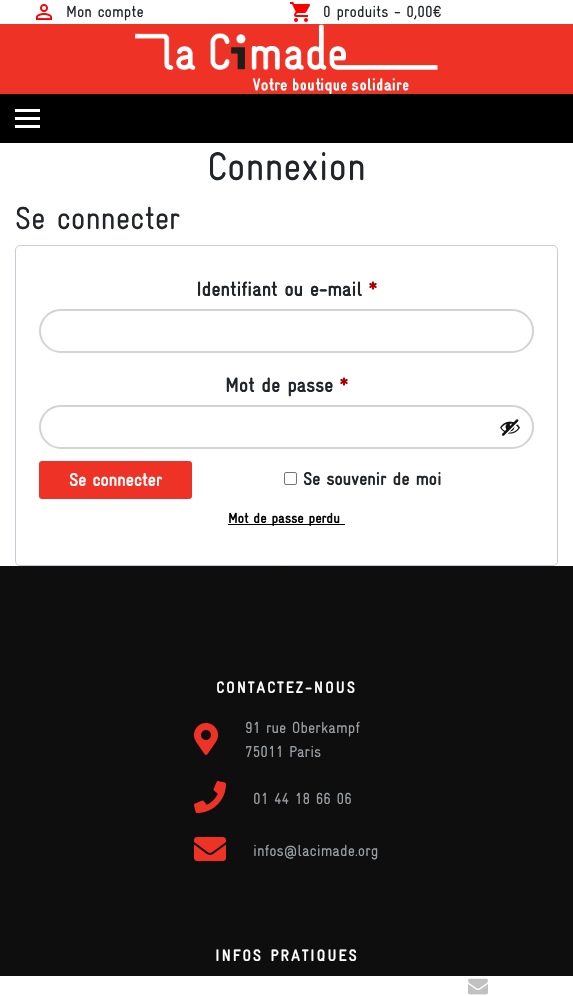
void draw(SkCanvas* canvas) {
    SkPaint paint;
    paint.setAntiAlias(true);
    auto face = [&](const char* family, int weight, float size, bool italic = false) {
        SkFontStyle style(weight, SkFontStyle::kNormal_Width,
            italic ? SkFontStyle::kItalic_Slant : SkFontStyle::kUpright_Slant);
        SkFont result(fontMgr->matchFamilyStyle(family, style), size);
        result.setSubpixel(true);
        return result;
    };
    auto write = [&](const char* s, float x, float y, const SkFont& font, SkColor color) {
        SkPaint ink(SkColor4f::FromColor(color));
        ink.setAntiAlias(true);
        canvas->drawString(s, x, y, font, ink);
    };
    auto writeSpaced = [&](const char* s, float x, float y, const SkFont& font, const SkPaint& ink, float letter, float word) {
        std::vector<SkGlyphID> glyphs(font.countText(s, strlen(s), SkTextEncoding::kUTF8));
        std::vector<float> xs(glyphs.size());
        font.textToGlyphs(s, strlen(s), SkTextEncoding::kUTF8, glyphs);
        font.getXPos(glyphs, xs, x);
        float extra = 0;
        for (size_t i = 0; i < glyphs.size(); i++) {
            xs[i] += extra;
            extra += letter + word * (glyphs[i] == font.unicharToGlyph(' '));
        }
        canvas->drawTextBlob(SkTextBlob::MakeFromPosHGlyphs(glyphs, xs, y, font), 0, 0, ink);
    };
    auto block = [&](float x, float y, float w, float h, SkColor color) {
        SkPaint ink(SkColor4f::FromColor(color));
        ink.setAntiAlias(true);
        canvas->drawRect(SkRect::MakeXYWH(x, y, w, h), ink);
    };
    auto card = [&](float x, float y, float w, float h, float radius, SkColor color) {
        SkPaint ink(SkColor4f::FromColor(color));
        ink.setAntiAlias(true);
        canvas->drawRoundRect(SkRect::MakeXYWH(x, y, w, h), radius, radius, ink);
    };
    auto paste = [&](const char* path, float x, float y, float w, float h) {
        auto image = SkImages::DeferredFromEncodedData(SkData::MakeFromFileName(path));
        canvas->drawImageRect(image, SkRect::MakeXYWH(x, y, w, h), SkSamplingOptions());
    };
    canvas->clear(SK_ColorWHITE);
    paste("pic1.png", 36, 4, 16, 16);
    auto kFont1 = face("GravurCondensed", 400, 16);
    write("Mon compte", 66, 17, kFont1, SkColorSetRGB(33, 37, 41));
    paste("pic2.png", 290, 2, 20, 20);
    write("0 produits - 0,00€", 323, 17, kFont1, SkColorSetRGB(33, 37, 41));
    block(0, 24, 573, 70, SkColorSetRGB(238, 50, 38));
    paste("pic3.png", 135, 24, 303, 70);
    block(0, 94, 573, 49, SK_ColorBLACK);
    block(15, 109, 25, 3, SK_ColorWHITE);
    block(15, 117, 25, 3, SK_ColorWHITE);
    block(15, 125, 25, 3, SK_ColorWHITE);
    auto kFont2 = face("GravurCondensed", 400, 40);
    write("Connexion", 207, 180, kFont2, SkColorSetRGB(33, 37, 41));
    auto kFont3 = face("GravurCondensed", 400, 32);
    write("Se connecter", 15, 229, kFont3, SkColorSetRGB(33, 37, 41));
    paint.setStyle(SkPaint::kStroke_Style);
    paint.setStrokeWidth(1);
    paint.setColor(SkColorSetRGB(207, 200, 216));
    canvas->drawRoundRect(SkRect::MakeXYWH(15.5f, 245.5f, 542, 320), 4.5f, 4.5f, paint);
    auto kFont4 = face("GravurCondensed", 700, 20);
    write("Identifiant ou e-mail", 196, 296, kFont4, SkColorSetRGB(33, 37, 41));
    write("*", 369, 296, kFont4, SkColorSetRGB(170, 0, 0));
    paint.setStrokeWidth(2);
    paint.setColor(SkColorSetRGB(211, 211, 211));
    canvas->drawRoundRect(SkRect::MakeXYWH(40, 310, 493, 42), 21, 21, paint);
    write("Mot de passe", 225, 392, kFont4, SkColorSetRGB(33, 37, 41));
    write("*", 340, 392, kFont4, SkColorSetRGB(170, 0, 0));
    canvas->drawRoundRect(SkRect::MakeXYWH(40, 406, 493, 42), 21, 21, paint);
    paste("pic4.png", 500, 419, 20, 17);
    card(39, 461, 153, 38, 3, SkColorSetRGB(238, 50, 38));
    auto kFont5 = face("GravurCondensed", 700, 18);
    write("Se connecter", 69, 486, kFont5, SK_ColorWHITE);
    paint.setStrokeWidth(1);
    paint.setColor(SkColorSetRGB(118, 118, 118));
    canvas->drawRoundRect(SkRect::MakeXYWH(284.5f, 472.5f, 12, 12), 1.5f, 1.5f, paint);
    write("Se souvenir de moi", 303, 485, kFont5, SkColorSetRGB(33, 37, 41));
    block(228, 524, 117, 1, SK_ColorBLACK);
    auto kFont6 = face("GravurCondensed", 700, 14);
    write("Mot de passe perdu", 228, 523, kFont6, SK_ColorBLACK);
    block(0, 566, 573, 410, SkColorSetRGB(14, 14, 14));
    auto kFont7 = face("GravurCondensed", 700, 16);
    paint.setStyle(SkPaint::kFill_Style);
    paint.setColor(SK_ColorWHITE);
    writeSpaced("CONTACTEZ-NOUS", 216, 693, kFont7, paint, 2, 0);
    paste("pic5.png", 194, 723, 24, 32);
    write("91 rue Oberkampf", 245, 733, kFont1, SkColorSetRGB(154, 159, 164));
    write("75011 Paris", 245, 757, kFont1, SkColorSetRGB(154, 159, 164));
    paste("pic6.png", 194, 781, 32, 32);
    write("01 44 18 66 06", 253, 804, kFont1, SkColorSetRGB(154, 159, 164));
    paste("pic7.png", 194, 837, 32, 24);
    write("infos@lacimade.org", 253, 856, kFont1, SkColorSetRGB(154, 159, 164));
    writeSpaced("INFOS PRATIQUES", 215, 961, kFont7, paint, 2, 0);
    paste("pic8.png", 468, 978, 20, 17);
}
